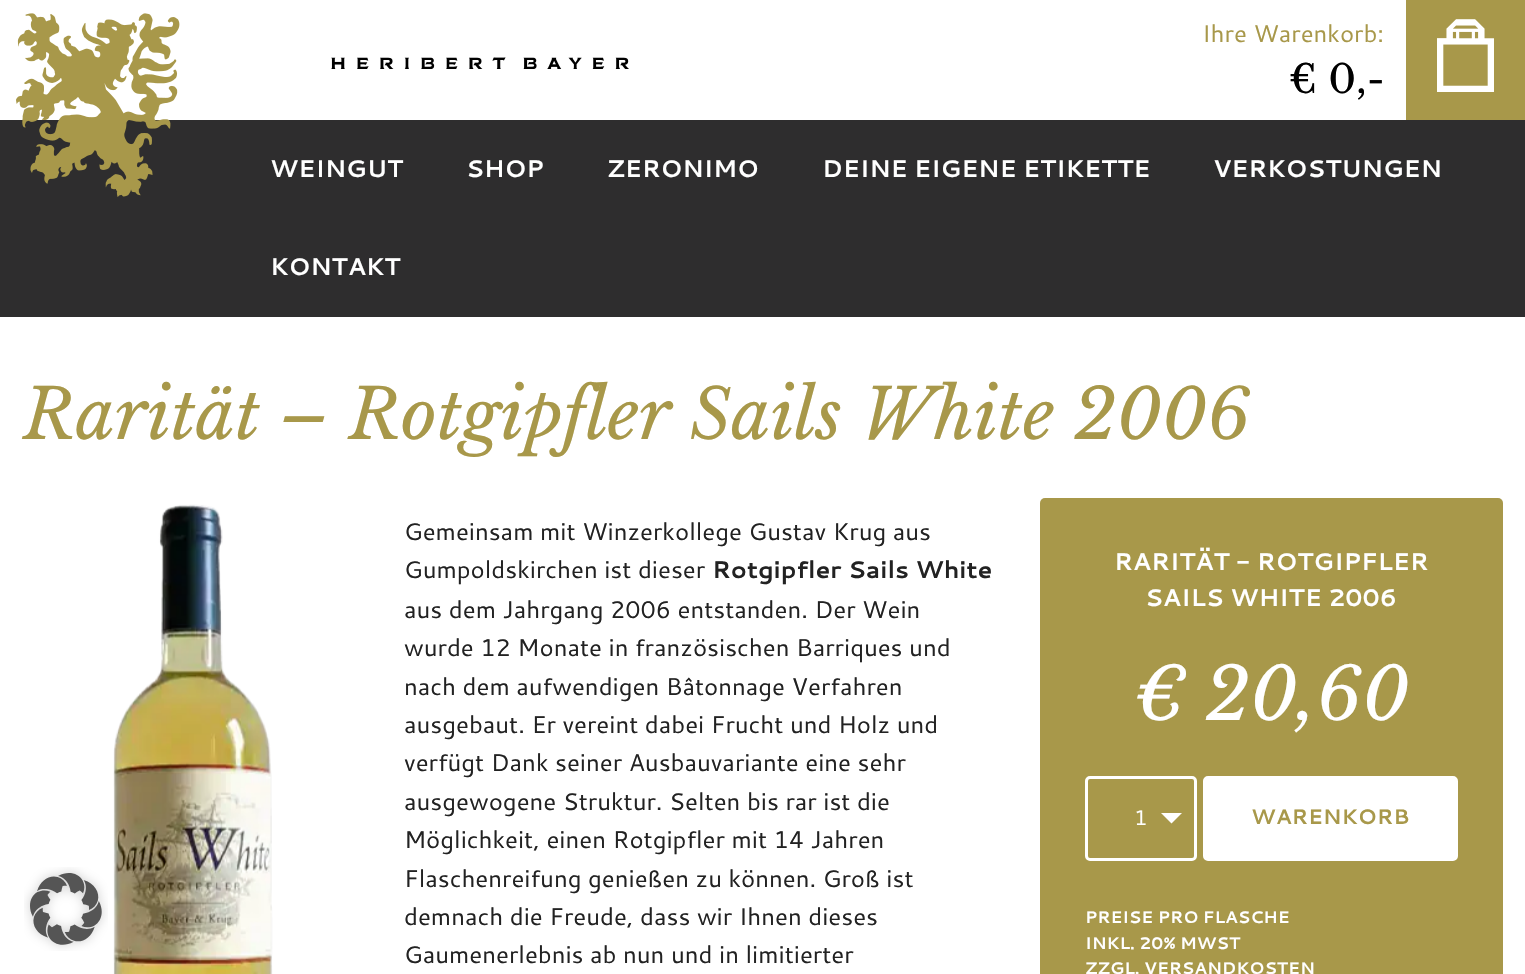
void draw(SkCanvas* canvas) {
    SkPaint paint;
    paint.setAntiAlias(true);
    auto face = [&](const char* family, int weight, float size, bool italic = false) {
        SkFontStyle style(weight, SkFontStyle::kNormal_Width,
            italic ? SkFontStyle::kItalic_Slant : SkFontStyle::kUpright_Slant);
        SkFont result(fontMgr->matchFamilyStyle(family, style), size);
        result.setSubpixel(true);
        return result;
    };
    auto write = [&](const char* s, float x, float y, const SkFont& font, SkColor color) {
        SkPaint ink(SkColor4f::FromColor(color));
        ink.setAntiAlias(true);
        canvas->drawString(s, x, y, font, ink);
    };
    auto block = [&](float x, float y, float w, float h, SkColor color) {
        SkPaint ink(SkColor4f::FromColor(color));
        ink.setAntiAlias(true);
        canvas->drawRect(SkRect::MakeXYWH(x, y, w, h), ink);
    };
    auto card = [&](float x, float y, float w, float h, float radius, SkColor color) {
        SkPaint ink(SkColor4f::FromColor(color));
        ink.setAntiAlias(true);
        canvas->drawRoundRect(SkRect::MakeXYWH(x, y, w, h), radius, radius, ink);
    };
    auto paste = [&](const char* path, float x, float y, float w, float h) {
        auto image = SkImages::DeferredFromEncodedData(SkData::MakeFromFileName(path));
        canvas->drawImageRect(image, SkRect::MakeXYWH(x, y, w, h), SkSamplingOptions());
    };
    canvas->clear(SK_ColorWHITE);
    block(0, 120, 1525, 197, SkColorSetRGB(46, 45, 46));
    paste("pic1.png", 16, 13, 164, 184);
    paste("pic2.png", 331, 57, 298, 12);
    auto kFont1 = face("Cantarell", 400, 24);
    write("Ihre Warenkorb:", 1202, 42, kFont1, SkColorSetRGB(168, 152, 74));
    auto kFont2 = face("Libre Baskerville", 400, 39);
    write("€ 0,-", 1289, 93, kFont2, SK_ColorBLACK);
    block(1406, 0, 119, 120, SkColorSetRGB(168, 152, 74));
    paste("pic3.png", 1437, 19, 57, 73);
    auto kFont3 = face("Cantarell", 700, 24);
    write("WEINGUT", 270, 177, kFont3, SK_ColorWHITE);
    write("SHOP", 466, 177, kFont3, SK_ColorWHITE);
    write("ZERONIMO", 607, 177, kFont3, SK_ColorWHITE);
    write("DEINE EIGENE ETIKETTE", 822, 177, kFont3, SK_ColorWHITE);
    write("VERKOSTUNGEN", 1213, 177, kFont3, SK_ColorWHITE);
    write("KONTAKT", 270, 275, kFont3, SK_ColorWHITE);
    auto kFont4 = face("Libre Baskerville", 400, 69, true);
    write("Rarität – Rotgipfler Sails White 2006", 23, 439, kFont4, SkColorSetRGB(168, 152, 74));
    paste("pic4.png", 113, 504, 160, 470);
    write("Gemeinsam mit Winzerkollege Gustav Krug aus", 404, 540, kFont1, SkColorSetRGB(34, 34, 34));
    write("Gumpoldskirchen ist dieser", 404, 578, kFont1, SkColorSetRGB(34, 34, 34));
    write("Rotgipfler Sails White", 712, 578, kFont3, SkColorSetRGB(34, 34, 34));
    write("aus dem Jahrgang 2006 entstanden. Der Wein", 404, 618, kFont1, SkColorSetRGB(34, 34, 34));
    write("wurde 12 Monate in französischen Barriques und", 404, 656, kFont1, SkColorSetRGB(34, 34, 34));
    write("nach dem aufwendigen Bâtonnage Verfahren", 404, 695, kFont1, SkColorSetRGB(34, 34, 34));
    write("ausgebaut. Er vereint dabei Frucht und Holz und", 404, 733, kFont1, SkColorSetRGB(34, 34, 34));
    write("verfügt Dank seiner Ausbauvariante eine sehr", 404, 771, kFont1, SkColorSetRGB(34, 34, 34));
    write("ausgewogene Struktur. Selten bis rar ist die", 404, 810, kFont1, SkColorSetRGB(34, 34, 34));
    write("Möglichkeit, einen Rotgipfler mit 14 Jahren", 404, 848, kFont1, SkColorSetRGB(34, 34, 34));
    write("Flaschenreifung genießen zu können. Groß ist", 404, 887, kFont1, SkColorSetRGB(34, 34, 34));
    write("demnach die Freude, dass wir Ihnen dieses", 404, 925, kFont1, SkColorSetRGB(34, 34, 34));
    write("Gaumenerlebnis ab nun und in limitierter", 404, 963, kFont1, SkColorSetRGB(34, 34, 34));
    card(1040, 498, 463, 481, 5, SkColorSetRGB(168, 152, 74));
    write("RARITÄT - ROTGIPFLER", 1114, 570, kFont3, SK_ColorWHITE);
    write("SAILS WHITE 2006", 1145, 606, kFont3, SK_ColorWHITE);
    auto kFont5 = face("Libre Baskerville", 400, 72, true);
    write("€ 20,60", 1134, 720, kFont5, SK_ColorWHITE);
    paint.setStyle(SkPaint::kStroke_Style);
    paint.setStrokeWidth(3);
    paint.setColor(SK_ColorWHITE);
    canvas->drawRoundRect(SkRect::MakeXYWH(1086.5f, 777.5f, 109, 82), 3.5f, 3.5f, paint);
    auto kFont6 = face("Cantarell", 400, 21);
    write("1", 1134, 825, kFont6, SK_ColorWHITE);
    paint.setStyle(SkPaint::kFill_Style);
    canvas->drawPath(SkPathBuilder().moveTo(1161, 813).lineTo(1182, 813).lineTo(1171.5f, 823.5f).close().detach(), paint);
    canvas->drawRoundRect(SkRect::MakeXYWH(1204.5f, 777.5f, 252, 82), 3.5f, 3.5f, paint);
    paint.setStyle(SkPaint::kStroke_Style);
    canvas->drawRoundRect(SkRect::MakeXYWH(1204.5f, 777.5f, 252, 82), 3.5f, 3.5f, paint);
    auto kFont7 = face("Cantarell", 700, 21);
    write("WARENKORB", 1251, 824, kFont7, SkColorSetRGB(168, 152, 74));
    auto kFont8 = face("Cantarell", 700, 16.75f);
    write("PREISE PRO FLASCHE", 1085, 923, kFont8, SK_ColorWHITE);
    write("INKL. 20% MWST", 1085, 949, kFont8, SK_ColorWHITE);
    write("ZZGL. VERSANDKOSTEN", 1085, 974, kFont8, SK_ColorWHITE);
    paste("pic5.png", 24, 867, 84, 84);
}
